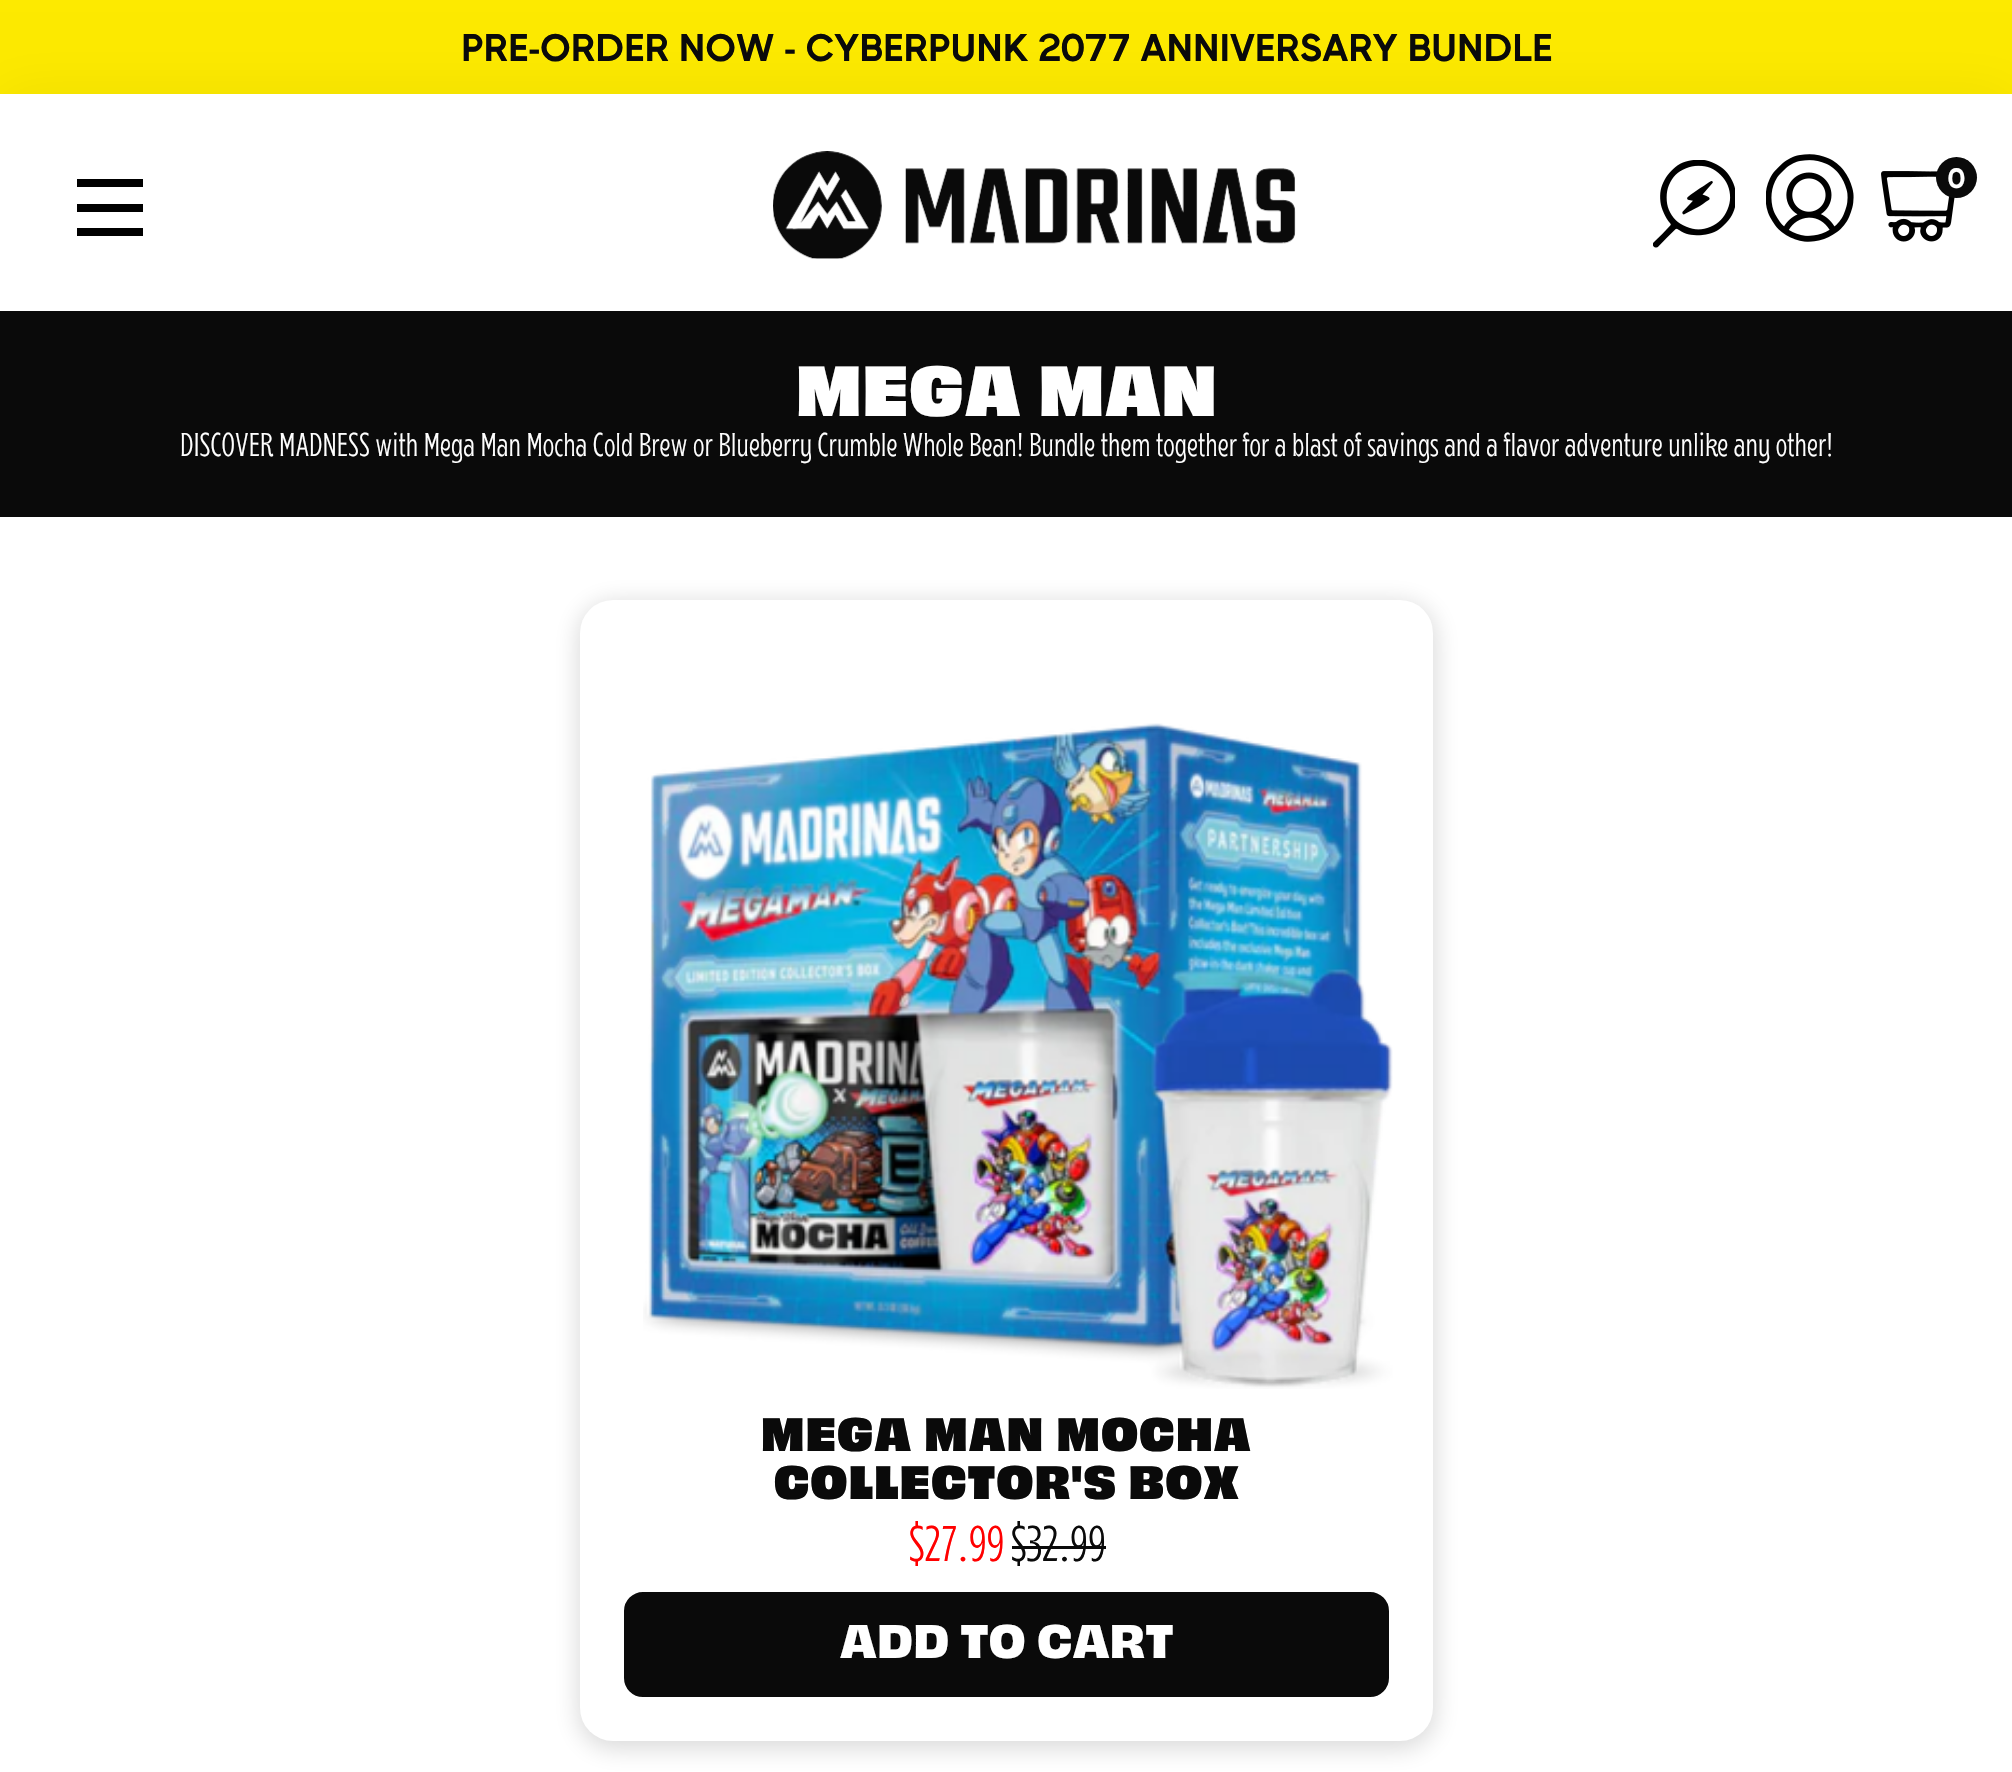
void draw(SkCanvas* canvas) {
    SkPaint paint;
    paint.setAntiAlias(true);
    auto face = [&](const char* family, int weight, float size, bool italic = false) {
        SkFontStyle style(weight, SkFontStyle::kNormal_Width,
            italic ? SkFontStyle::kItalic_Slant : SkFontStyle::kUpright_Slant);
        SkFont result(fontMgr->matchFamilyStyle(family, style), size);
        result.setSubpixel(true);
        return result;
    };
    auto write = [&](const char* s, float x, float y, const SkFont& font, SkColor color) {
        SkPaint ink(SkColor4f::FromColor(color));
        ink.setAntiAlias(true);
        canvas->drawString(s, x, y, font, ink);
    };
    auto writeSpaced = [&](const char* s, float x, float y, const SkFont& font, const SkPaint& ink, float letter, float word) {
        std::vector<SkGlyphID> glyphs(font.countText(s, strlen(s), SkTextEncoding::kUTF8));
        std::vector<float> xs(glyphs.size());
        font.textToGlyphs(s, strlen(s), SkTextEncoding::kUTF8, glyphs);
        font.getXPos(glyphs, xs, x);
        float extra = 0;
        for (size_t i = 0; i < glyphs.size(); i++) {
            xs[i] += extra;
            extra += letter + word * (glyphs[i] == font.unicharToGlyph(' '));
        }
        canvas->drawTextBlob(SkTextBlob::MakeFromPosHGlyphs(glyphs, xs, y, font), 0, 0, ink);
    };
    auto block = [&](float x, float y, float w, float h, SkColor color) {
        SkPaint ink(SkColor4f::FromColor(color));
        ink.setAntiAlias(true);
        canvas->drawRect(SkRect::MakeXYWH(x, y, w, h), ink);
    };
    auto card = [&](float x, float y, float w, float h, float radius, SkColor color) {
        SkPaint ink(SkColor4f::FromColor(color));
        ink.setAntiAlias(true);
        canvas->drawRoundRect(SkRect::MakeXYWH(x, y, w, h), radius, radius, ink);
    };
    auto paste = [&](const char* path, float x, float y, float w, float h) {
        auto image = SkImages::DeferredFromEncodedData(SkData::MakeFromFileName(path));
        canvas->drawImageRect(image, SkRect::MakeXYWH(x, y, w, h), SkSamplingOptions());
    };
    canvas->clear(SK_ColorWHITE);
    block(0, 0, 2012, 94, SkColorSetRGB(253, 234, 0));
    auto kFont1 = face("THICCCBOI", 700, 38.5f);
    write("PRE-ORDER NOW - CYBERPUNK 2077 ANNIVERSARY BUNDLE", 461, 61, kFont1, SkColorSetRGB(10, 10, 10));
    block(0, 311, 2012, 206, SkColorSetRGB(10, 10, 10));
    paint.setColor(SkColorSetARGB(15, 0, 0, 0));
    paint.setMaskFilter(SkMaskFilter::MakeBlur(kNormal_SkBlurStyle, 27.5f));
    canvas->drawRect(SkRect::MakeXYWH(0, 94, 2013, 217), paint);
    paint.setMaskFilter(nullptr);
    block(0, 94, 2012, 217, SK_ColorWHITE);
    block(77, 204, 66, 8, SK_ColorBLACK);
    block(77, 179, 66, 8, SK_ColorBLACK);
    block(77, 228, 66, 8, SK_ColorBLACK);
    paste("pic1.png", 773, 151, 523, 108);
    paste("pic2.png", 1653, 160, 82, 88);
    paste("pic3.png", 1766, 154, 88, 88);
    paste("pic4.png", 1881, 160, 88, 82);
    paint.setColor(SkColorSetRGB(10, 10, 10));
    canvas->drawCircle(1956.5f, 177.5f, 20.5f, paint);
    auto kFont2 = face("THICCCBOI", 700, 28);
    write("0", 1948, 188, kFont2, SK_ColorWHITE);
    auto kFont3 = face("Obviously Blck", 600, 66);
    paint.setColor(SK_ColorWHITE);
    writeSpaced("MEGA MAN", 796, 416, kFont3, paint, 1.4f, 0);
    auto kFont4 = face("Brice", 400, 33);
    write("DISCOVER MADNESS with Mega Man Mocha Cold Brew or Blueberry Crumble Whole Bean! Bundle them together for a blast of savings and a flavor adventure unlike any other!", 180, 456, kFont4, SK_ColorWHITE);
    paint.setColor(SkColorSetARGB(38, 10, 10, 10));
    paint.setMaskFilter(SkMaskFilter::MakeBlur(kNormal_SkBlurStyle, 12.5f));
    canvas->drawRoundRect(SkRect::MakeXYWH(578, 602, 858, 1147), 36, 36, paint);
    paint.setMaskFilter(nullptr);
    card(580, 600, 853, 1141, 33, SK_ColorWHITE);
    paste("pic5.png", 643, 723, 750, 666);
    auto kFont5 = face("Obviously Blck", 600, 43.75f);
    paint.setColor(SkColorSetRGB(10, 10, 10));
    writeSpaced("MEGA MAN MOCHA", 761, 1451, kFont5, paint, 1.4f, 0);
    writeSpaced("COLLECTOR'S BOX", 774, 1499, kFont5, paint, 1.4f, 0);
    auto kFont6 = face("Brice", 400, 50);
    write("$27.99", 909, 1561, kFont6, SkColorSetRGB(255, 0, 0));
    write("$32.99", 1011, 1561, kFont6, SkColorSetRGB(10, 10, 10));
    block(1012, 1546, 94, 3, SkColorSetRGB(10, 10, 10));
    canvas->drawRoundRect(SkRect::MakeXYWH(627, 1595, 759, 99), 16, 16, paint);
    paint.setStyle(SkPaint::kStroke_Style);
    paint.setStrokeWidth(6);
    canvas->drawRoundRect(SkRect::MakeXYWH(627, 1595, 759, 99), 16, 16, paint);
    auto kFont7 = face("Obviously", 700, 44);
    write("ADD TO CART", 840, 1658, kFont7, SK_ColorWHITE);
}
